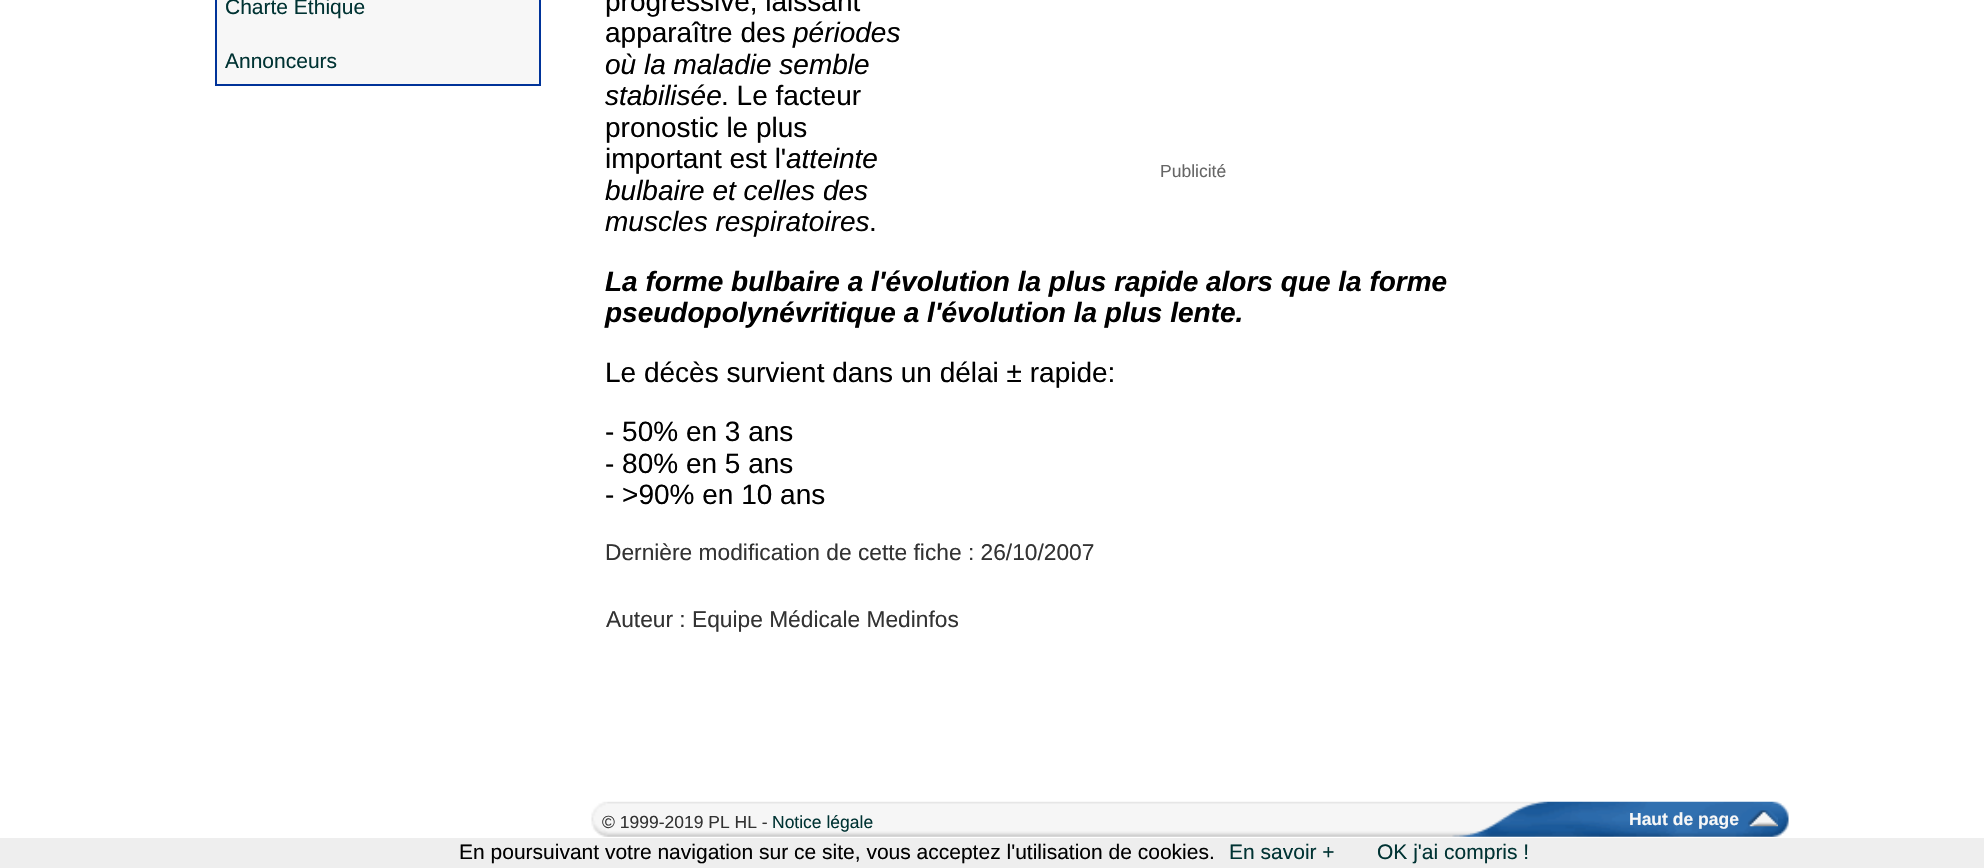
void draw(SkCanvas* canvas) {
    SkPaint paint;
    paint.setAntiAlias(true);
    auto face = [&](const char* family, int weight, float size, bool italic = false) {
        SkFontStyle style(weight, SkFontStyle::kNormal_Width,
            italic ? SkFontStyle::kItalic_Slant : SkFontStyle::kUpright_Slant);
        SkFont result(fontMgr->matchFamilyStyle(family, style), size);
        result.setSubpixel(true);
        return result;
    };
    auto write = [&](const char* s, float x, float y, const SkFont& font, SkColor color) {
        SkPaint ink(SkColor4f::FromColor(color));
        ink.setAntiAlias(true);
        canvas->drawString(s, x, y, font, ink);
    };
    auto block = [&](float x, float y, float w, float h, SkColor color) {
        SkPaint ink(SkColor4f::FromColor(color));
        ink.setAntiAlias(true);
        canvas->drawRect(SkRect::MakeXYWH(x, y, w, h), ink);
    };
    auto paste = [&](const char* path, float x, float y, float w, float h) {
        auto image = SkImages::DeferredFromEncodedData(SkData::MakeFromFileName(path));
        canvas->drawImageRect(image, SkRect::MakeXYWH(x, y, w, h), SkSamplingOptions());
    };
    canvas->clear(SK_ColorWHITE);
    block(215, 0, 326, 86, SkColorSetRGB(0, 51, 153));
    block(217, 0, 322, 84, SkColorSetRGB(247, 247, 247));
    auto kFont1 = face("Liberation Sans", 400, 21);
    write("Charte Ethique", 225, 14, kFont1, SkColorSetRGB(0, 51, 51));
    write("Annonceurs", 225, 68, kFont1, SkColorSetRGB(0, 51, 51));
    auto kFont2 = face("Liberation Sans", 400, 28);
    write("progressive, laissant", 605, 11, kFont2, SK_ColorBLACK);
    write("apparaître des", 605, 42, kFont2, SK_ColorBLACK);
    auto kFont3 = face("Liberation Sans", 400, 28, true);
    write("périodes", 793, 42, kFont3, SK_ColorBLACK);
    write("où la maladie semble", 605, 74, kFont3, SK_ColorBLACK);
    write("stabilisée", 605, 105, kFont3, SK_ColorBLACK);
    write(". Le facteur", 721, 105, kFont2, SK_ColorBLACK);
    write("pronostic le plus", 605, 137, kFont2, SK_ColorBLACK);
    write("important est l'", 605, 168, kFont2, SK_ColorBLACK);
    write("atteinte", 786, 168, kFont3, SK_ColorBLACK);
    write("bulbaire et celles des", 605, 200, kFont3, SK_ColorBLACK);
    write("muscles respiratoires", 605, 231, kFont3, SK_ColorBLACK);
    write(".", 869, 231, kFont2, SK_ColorBLACK);
    auto kFont4 = face("Liberation Sans", 400, 17.5f);
    write("Publicité", 1160, 177, kFont4, SkColorSetRGB(102, 102, 102));
    auto kFont5 = face("Liberation Sans", 700, 28, true);
    write("La forme bulbaire a l'évolution la plus rapide alors que la forme", 605, 291, kFont5, SK_ColorBLACK);
    write("pseudopolynévritique a l'évolution la plus lente.", 605, 322, kFont5, SK_ColorBLACK);
    write("Le décès survient dans un délai ± rapide:", 605, 382, kFont2, SK_ColorBLACK);
    write("- 50% en 3 ans", 605, 441, kFont2, SK_ColorBLACK);
    write("- 80% en 5 ans", 605, 473, kFont2, SK_ColorBLACK);
    write("- >90% en 10 ans", 605, 504, kFont2, SK_ColorBLACK);
    auto kFont6 = face("Liberation Sans", 400, 22.75f);
    write("Dernière modification de cette fiche : 26/10/2007", 605, 560, kFont6, SkColorSetRGB(51, 51, 51));
    write("Auteur : Equipe Médicale Medinfos", 606, 627, kFont6, SkColorSetRGB(51, 51, 51));
    paste("pic1.png", 591, 801, 879, 36);
    write("© 1999-2019 PL HL -", 602, 828, kFont4, SkColorSetRGB(51, 51, 51));
    write("Notice légale", 772, 828, kFont4, SkColorSetRGB(0, 51, 51));
    paste("pic2.png", 1470, 801, 319, 36);
    auto kFont7 = face("Liberation Sans", 700, 17.5f);
    write("Haut de page", 1629, 825, kFont7, SkColorSetRGB(247, 247, 247));
    paste("pic3.png", 1748, 810, 30, 17);
    block(0, 838, 1984, 30, SkColorSetRGB(238, 238, 238));
    write("En poursuivant votre navigation sur ce site, vous acceptez l'utilisation de cookies.", 459, 859, kFont1, SK_ColorBLACK);
    write("En savoir +", 1229, 859, kFont1, SkColorSetRGB(0, 51, 51));
    write("OK j'ai compris !", 1377, 859, kFont1, SkColorSetRGB(0, 51, 51));
}
